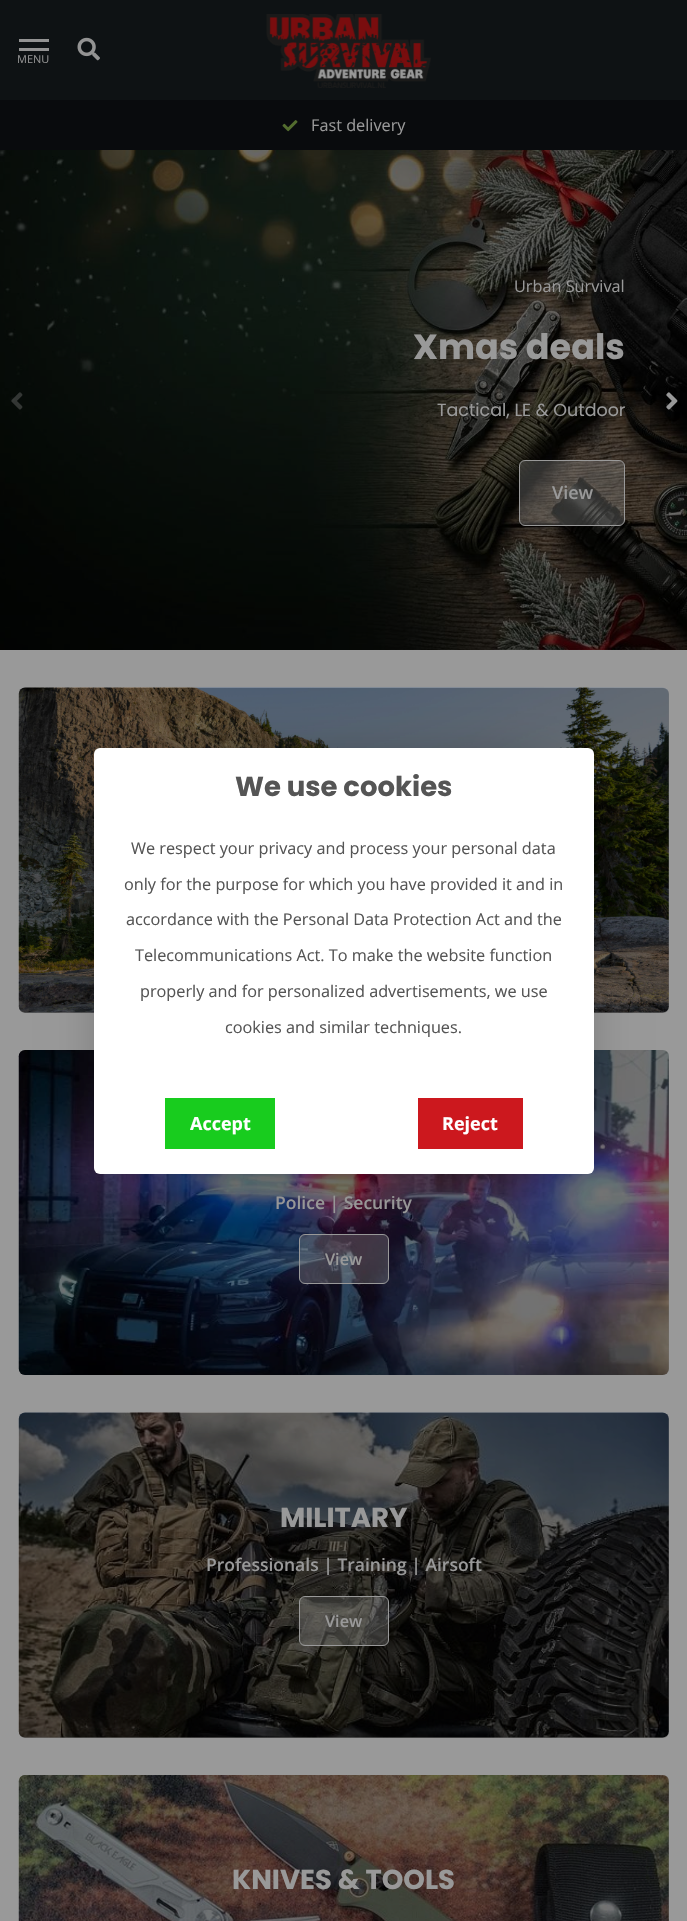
void draw(SkCanvas* canvas) {
    SkPaint paint;
    paint.setAntiAlias(true);
    auto face = [&](const char* family, int weight, float size, bool italic = false) {
        SkFontStyle style(weight, SkFontStyle::kNormal_Width,
            italic ? SkFontStyle::kItalic_Slant : SkFontStyle::kUpright_Slant);
        SkFont result(fontMgr->matchFamilyStyle(family, style), size);
        result.setSubpixel(true);
        return result;
    };
    auto write = [&](const char* s, float x, float y, const SkFont& font, SkColor color) {
        SkPaint ink(SkColor4f::FromColor(color));
        ink.setAntiAlias(true);
        canvas->drawString(s, x, y, font, ink);
    };
    auto block = [&](float x, float y, float w, float h, SkColor color) {
        SkPaint ink(SkColor4f::FromColor(color));
        ink.setAntiAlias(true);
        canvas->drawRect(SkRect::MakeXYWH(x, y, w, h), ink);
    };
    auto card = [&](float x, float y, float w, float h, float radius, SkColor color) {
        SkPaint ink(SkColor4f::FromColor(color));
        ink.setAntiAlias(true);
        canvas->drawRoundRect(SkRect::MakeXYWH(x, y, w, h), radius, radius, ink);
    };
    auto paste = [&](const char* path, float x, float y, float w, float h) {
        auto image = SkImages::DeferredFromEncodedData(SkData::MakeFromFileName(path));
        canvas->drawImageRect(image, SkRect::MakeXYWH(x, y, w, h), SkSamplingOptions());
    };
    canvas->clear(SkColorSetRGB(153, 153, 153));
    block(0, 0, 687, 100, SkColorSetRGB(14, 18, 20));
    block(19, 39, 30, 3, SkColorSetRGB(147, 147, 147));
    block(19, 48, 30, 3, SkColorSetRGB(147, 147, 147));
    auto kFont1 = face("Open Sans", 400, 11);
    write("MENU", 17, 63, kFont1, SkColorSetRGB(147, 147, 147));
    paste("pic1.png", 77, 37, 23, 24);
    paste("pic2.png", 266, 14, 165, 74);
    block(0, 100, 687, 50, SkColorSetRGB(9, 11, 13));
    paste("pic3.png", 282, 120, 16, 12);
    auto kFont2 = face("Open Sans", 400, 16.25f);
    write("Fast delivery", 311, 131, kFont2, SkColorSetRGB(153, 153, 153));
    paste("pic5.png", 0, 150, 687, 500);
    paste("pic4.png", 11, 392, 12, 18);
    write("Urban Survival", 514, 292, kFont2, SkColorSetRGB(153, 153, 153));
    auto kFont3 = face("Poppins", 700, 35);
    write("Xmas deals", 413, 359, kFont3, SkColorSetRGB(153, 153, 153));
    auto kFont4 = face("Poppins", 400, 17.5f);
    write("Tactical, LE & Outdoor", 437, 416, kFont4, SkColorSetRGB(153, 153, 153));
    paint.setColor(SkColorSetARGB(77, 153, 153, 153));
    canvas->drawRoundRect(SkRect::MakeXYWH(519.5f, 460.5f, 105, 65), 5.5f, 5.5f, paint);
    paint.setStyle(SkPaint::kStroke_Style);
    paint.setStrokeWidth(1);
    paint.setColor(SkColorSetRGB(153, 153, 153));
    canvas->drawRoundRect(SkRect::MakeXYWH(519.5f, 460.5f, 105, 65), 5.5f, 5.5f, paint);
    auto kFont5 = face("Open Sans", 600, 18);
    write("View", 552, 499, kFont5, SkColorSetRGB(153, 153, 153));
    block(650, 369, 37, 62, SkColorSetARGB(77, 0, 0, 0));
    paste("pic6.png", 666, 392, 12, 18);
    paste("pic7.png", 18, 687, 651, 326);
    card(19, 688, 650, 325, 6, SkColorSetARGB(64, 0, 0, 0));
    paste("pic8.png", 18, 1050, 651, 325);
    card(19, 1050, 650, 325, 6, SkColorSetARGB(64, 0, 0, 0));
    auto kFont6 = face("Open Sans", 600, 17.5f);
    write("Police | Security", 275, 1209, kFont6, SkColorSetRGB(153, 153, 153));
    paint.setStyle(SkPaint::kFill_Style);
    paint.setColor(SkColorSetARGB(77, 153, 153, 153));
    canvas->drawRoundRect(SkRect::MakeXYWH(299.5f, 1234.5f, 89, 49), 5.5f, 5.5f, paint);
    paint.setStyle(SkPaint::kStroke_Style);
    paint.setColor(SkColorSetRGB(153, 153, 153));
    canvas->drawRoundRect(SkRect::MakeXYWH(299.5f, 1234.5f, 89, 49), 5.5f, 5.5f, paint);
    auto kFont7 = face("Open Sans", 600, 16.25f);
    write("View", 325, 1265, kFont7, SkColorSetRGB(153, 153, 153));
    paste("pic9.png", 18, 1412, 651, 326);
    card(19, 1413, 650, 325, 6, SkColorSetARGB(64, 0, 0, 0));
    auto kFont8 = face("Poppins", 700, 27.5f);
    write("MILITARY", 280, 1527, kFont8, SkColorSetRGB(153, 153, 153));
    write("Professionals | Training | Airsoft", 206, 1571, kFont6, SkColorSetRGB(153, 153, 153));
    paint.setStyle(SkPaint::kFill_Style);
    paint.setColor(SkColorSetARGB(77, 153, 153, 153));
    canvas->drawRoundRect(SkRect::MakeXYWH(299.5f, 1596.5f, 89, 49), 5.5f, 5.5f, paint);
    paint.setStyle(SkPaint::kStroke_Style);
    paint.setColor(SkColorSetRGB(153, 153, 153));
    canvas->drawRoundRect(SkRect::MakeXYWH(299.5f, 1596.5f, 89, 49), 5.5f, 5.5f, paint);
    write("View", 325, 1627, kFont7, SkColorSetRGB(153, 153, 153));
    paste("pic10.png", 18, 1775, 651, 146);
    card(19, 1775, 650, 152, 6, SkColorSetARGB(64, 0, 0, 0));
    write("KNIVES & TOOLS", 232, 1889, kFont8, SkColorSetRGB(153, 153, 153));
    paint.setStyle(SkPaint::kFill_Style);
    paint.setColor(SK_ColorBLACK);
    paint.setMaskFilter(SkMaskFilter::MakeBlur(kNormal_SkBlurStyle, 37.5f));
    canvas->drawRect(SkRect::MakeXYWH(144, 798, 400, 326), paint);
    paint.setMaskFilter(nullptr);
    card(94, 748, 500, 426, 6, SK_ColorWHITE);
    write("We use cookies", 235, 796, kFont8, SkColorSetRGB(85, 85, 85));
    write("We respect your privacy and process your personal data", 131, 854, kFont2, SkColorSetRGB(85, 85, 85));
    write("only for the purpose for which you have provided it and in", 124, 890, kFont2, SkColorSetRGB(85, 85, 85));
    write("accordance with the Personal Data Protection Act and the", 126, 925, kFont2, SkColorSetRGB(85, 85, 85));
    write("Telecommunications Act. To make the website function", 135, 961, kFont2, SkColorSetRGB(85, 85, 85));
    write("properly and for personalized advertisements, we use", 140, 997, kFont2, SkColorSetRGB(85, 85, 85));
    write("cookies and similar techniques.", 225, 1033, kFont2, SkColorSetRGB(85, 85, 85));
    block(165, 1098, 110, 51, SkColorSetRGB(24, 204, 30));
    auto kFont9 = face("Open Sans", 700, 18);
    write("Accept", 190, 1130, kFont9, SK_ColorWHITE);
    block(418, 1098, 105, 51, SkColorSetRGB(204, 24, 30));
    write("Reject", 442, 1130, kFont9, SK_ColorWHITE);
}
